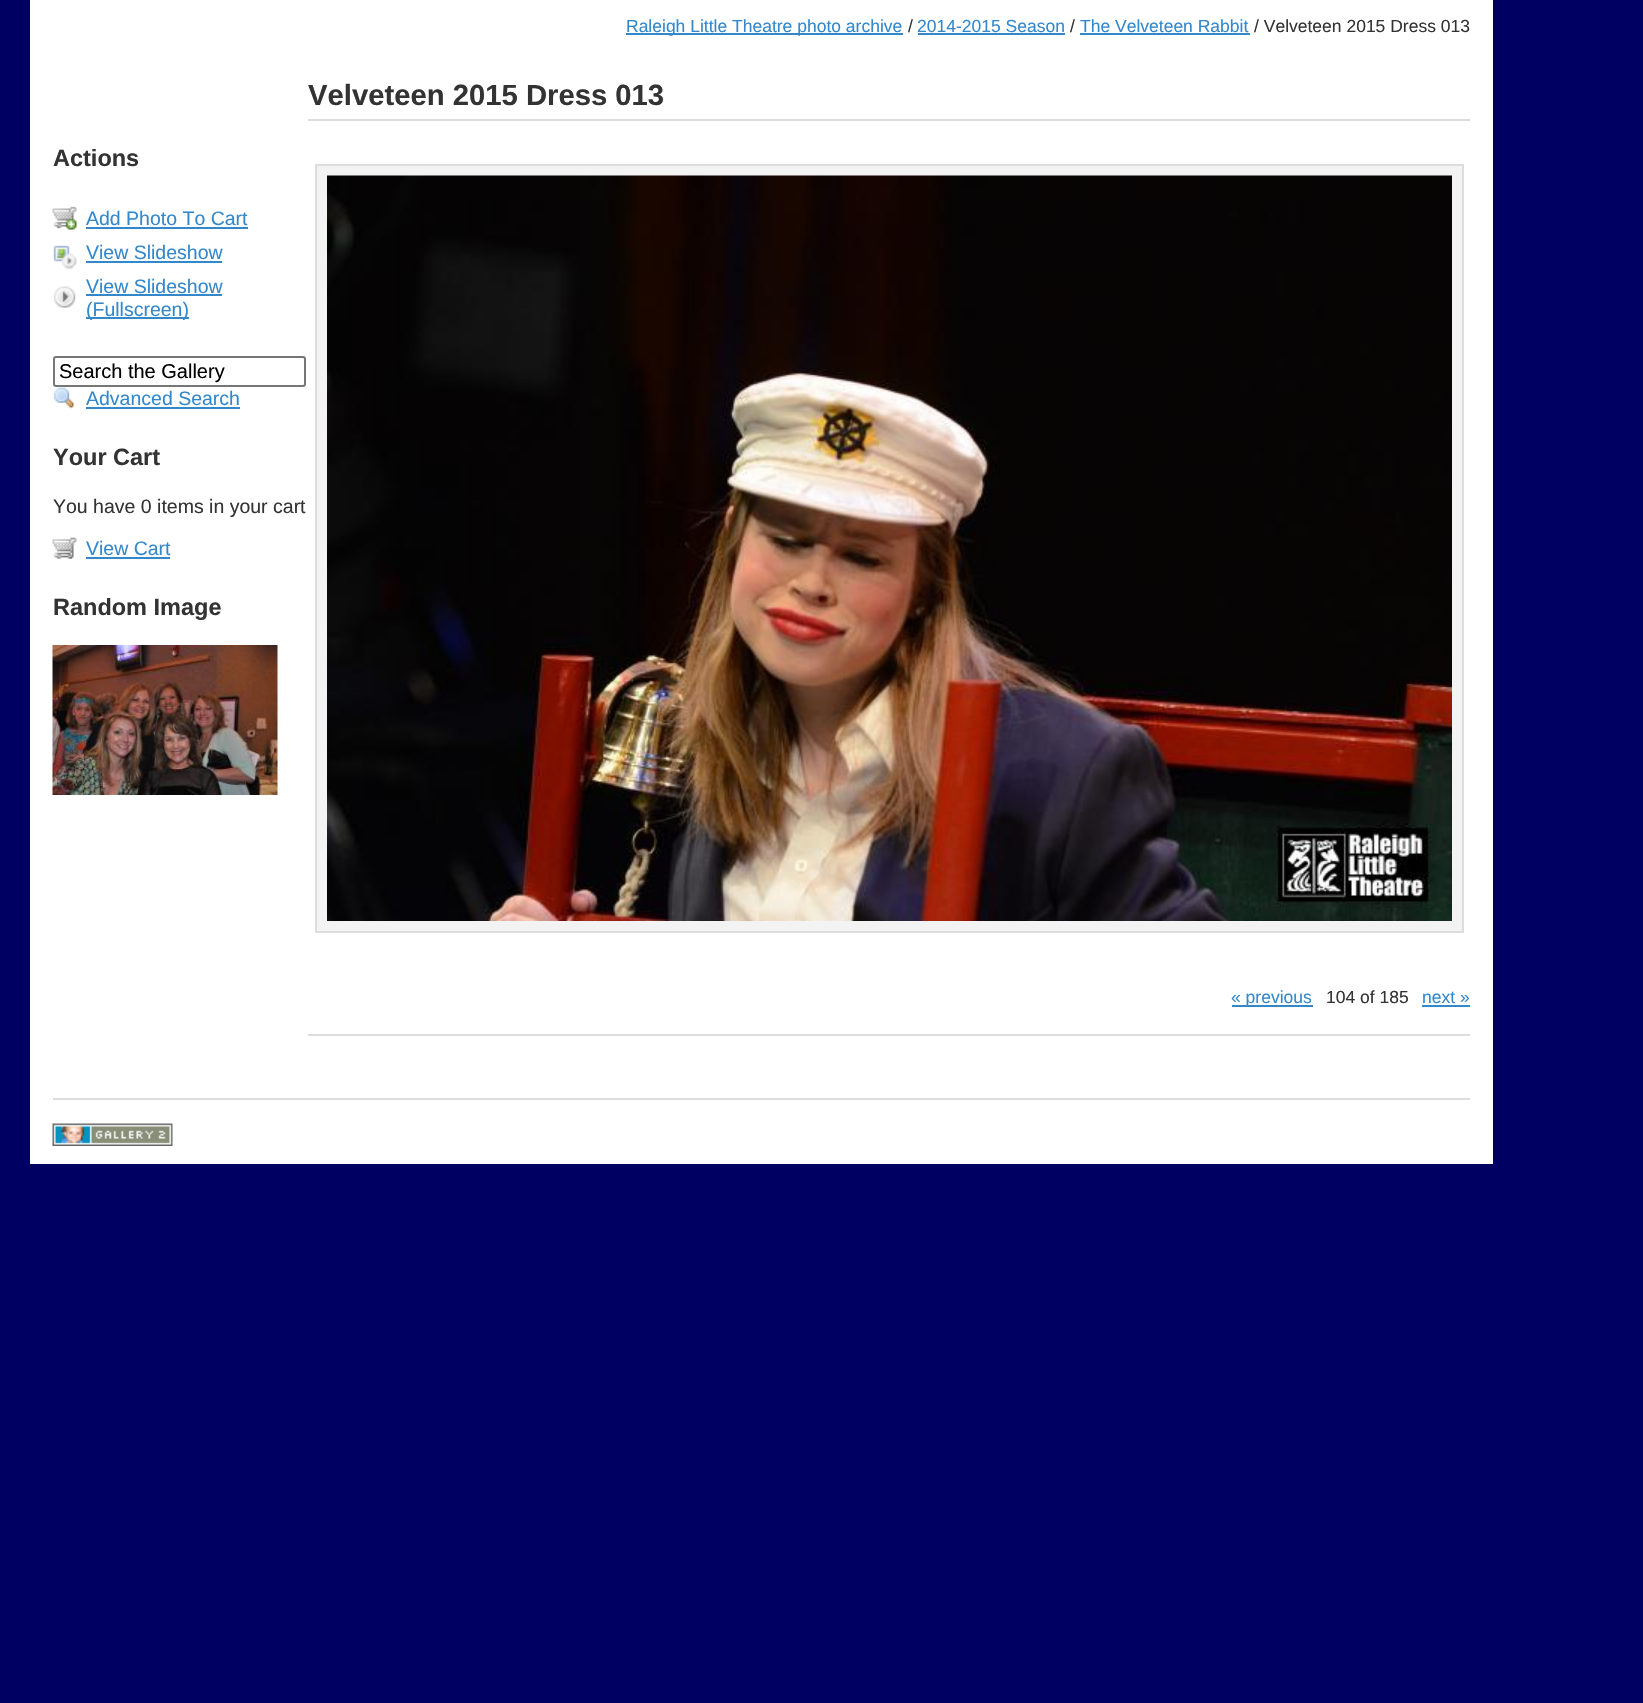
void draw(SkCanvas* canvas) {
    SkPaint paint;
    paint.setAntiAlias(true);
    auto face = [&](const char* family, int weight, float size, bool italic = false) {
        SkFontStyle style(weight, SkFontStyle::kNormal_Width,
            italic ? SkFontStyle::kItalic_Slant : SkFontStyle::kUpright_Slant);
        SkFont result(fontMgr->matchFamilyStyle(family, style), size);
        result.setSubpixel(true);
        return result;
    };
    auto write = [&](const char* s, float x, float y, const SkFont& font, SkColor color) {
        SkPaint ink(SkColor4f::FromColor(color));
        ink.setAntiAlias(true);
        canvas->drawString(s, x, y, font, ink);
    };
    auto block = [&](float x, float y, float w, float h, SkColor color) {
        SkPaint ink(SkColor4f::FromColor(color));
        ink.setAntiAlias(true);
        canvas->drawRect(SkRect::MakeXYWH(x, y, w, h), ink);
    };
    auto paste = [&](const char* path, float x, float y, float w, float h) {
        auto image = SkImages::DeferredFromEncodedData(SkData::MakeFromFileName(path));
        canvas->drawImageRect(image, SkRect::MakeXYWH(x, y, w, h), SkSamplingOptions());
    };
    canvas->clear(SkColorSetRGB(0, 0, 99));
    block(30, 0, 1463, 1164, SK_ColorWHITE);
    block(626, 33, 277, 2, SkColorSetRGB(51, 136, 204));
    auto kFont1 = face("Liberation Sans", 400, 17.5f);
    write("Raleigh Little Theatre photo archive", 626, 32, kFont1, SkColorSetRGB(51, 136, 204));
    write("/", 908, 32, kFont1, SkColorSetRGB(51, 51, 51));
    write("2014-2015 Season", 917, 32, kFont1, SkColorSetRGB(51, 136, 204));
    block(918, 33, 147, 2, SkColorSetRGB(51, 136, 204));
    write("/", 1070, 32, kFont1, SkColorSetRGB(51, 51, 51));
    write("The Velveteen Rabbit", 1080, 32, kFont1, SkColorSetRGB(51, 136, 204));
    block(1080, 33, 170, 2, SkColorSetRGB(51, 136, 204));
    write("/ Velveteen 2015 Dress 013", 1254, 32, kFont1, SkColorSetRGB(51, 51, 51));
    auto kFont2 = face("Liberation Sans", 700, 23.5f);
    write("Actions", 53, 166, kFont2, SkColorSetRGB(51, 51, 51));
    paste("pic1.png", 52, 206, 25, 24);
    auto kFont3 = face("Liberation Sans", 400, 19.5f);
    write("Add Photo To Cart", 86, 225, kFont3, SkColorSetRGB(51, 136, 204));
    block(86, 227, 162, 2, SkColorSetRGB(51, 136, 204));
    paste("pic2.png", 53, 245, 24, 24);
    write("View Slideshow", 86, 259, kFont3, SkColorSetRGB(51, 136, 204));
    block(86, 261, 136, 2, SkColorSetRGB(51, 136, 204));
    paste("pic3.png", 53, 286, 23, 22);
    write("View Slideshow", 86, 293, kFont3, SkColorSetRGB(51, 136, 204));
    block(86, 294, 136, 2, SkColorSetRGB(51, 136, 204));
    block(86, 317, 103, 2, SkColorSetRGB(51, 136, 204));
    write("(Fullscreen)", 86, 316, kFont3, SkColorSetRGB(51, 136, 204));
    paint.setStyle(SkPaint::kStroke_Style);
    paint.setStrokeWidth(2);
    paint.setColor(SkColorSetRGB(118, 118, 118));
    canvas->drawRoundRect(SkRect::MakeXYWH(54, 357, 251, 29), 2, 2, paint);
    auto kFont4 = face("Liberation Sans", 400, 20);
    write("Search the Gallery", 59, 378, kFont4, SK_ColorBLACK);
    paste("pic4.png", 53, 387, 21, 22);
    write("Advanced Search", 86, 405, kFont3, SkColorSetRGB(51, 136, 204));
    block(86, 407, 154, 2, SkColorSetRGB(51, 136, 204));
    write("Your Cart", 53, 465, kFont2, SkColorSetRGB(51, 51, 51));
    write("You have 0 items in your cart", 53, 513, kFont3, SkColorSetRGB(51, 51, 51));
    paste("pic5.png", 52, 537, 25, 22);
    write("View Cart", 86, 555, kFont3, SkColorSetRGB(51, 136, 204));
    block(86, 557, 84, 2, SkColorSetRGB(51, 136, 204));
    write("Random Image", 53, 615, kFont2, SkColorSetRGB(51, 51, 51));
    paste("pic6.png", 52, 645, 226, 150);
    block(308, 119, 1162, 2, SkColorSetRGB(221, 221, 221));
    auto kFont5 = face("Liberation Sans", 700, 29.25f);
    write("Velveteen 2015 Dress 013", 308, 105, kFont5, SkColorSetRGB(51, 51, 51));
    paint.setStyle(SkPaint::kFill_Style);
    paint.setColor(SkColorSetRGB(243, 243, 243));
    canvas->drawRect(SkRect::MakeXYWH(316, 165, 1147, 767), paint);
    paint.setStyle(SkPaint::kStroke_Style);
    paint.setColor(SkColorSetRGB(221, 221, 221));
    canvas->drawRect(SkRect::MakeXYWH(316, 165, 1147, 767), paint);
    paste("pic7.png", 327, 175, 1125, 746);
    block(1232, 1005, 81, 2, SkColorSetRGB(51, 136, 204));
    write("« previous", 1231, 1003, kFont1, SkColorSetRGB(51, 136, 204));
    write("104 of 185", 1326, 1003, kFont1, SkColorSetRGB(51, 51, 51));
    write("next »", 1422, 1003, kFont1, SkColorSetRGB(51, 136, 204));
    block(1422, 1005, 48, 2, SkColorSetRGB(51, 136, 204));
    block(308, 1034, 1162, 2, SkColorSetRGB(221, 221, 221));
    block(53, 1098, 1417, 2, SkColorSetRGB(221, 221, 221));
    paste("pic8.png", 52, 1123, 121, 23);
}
